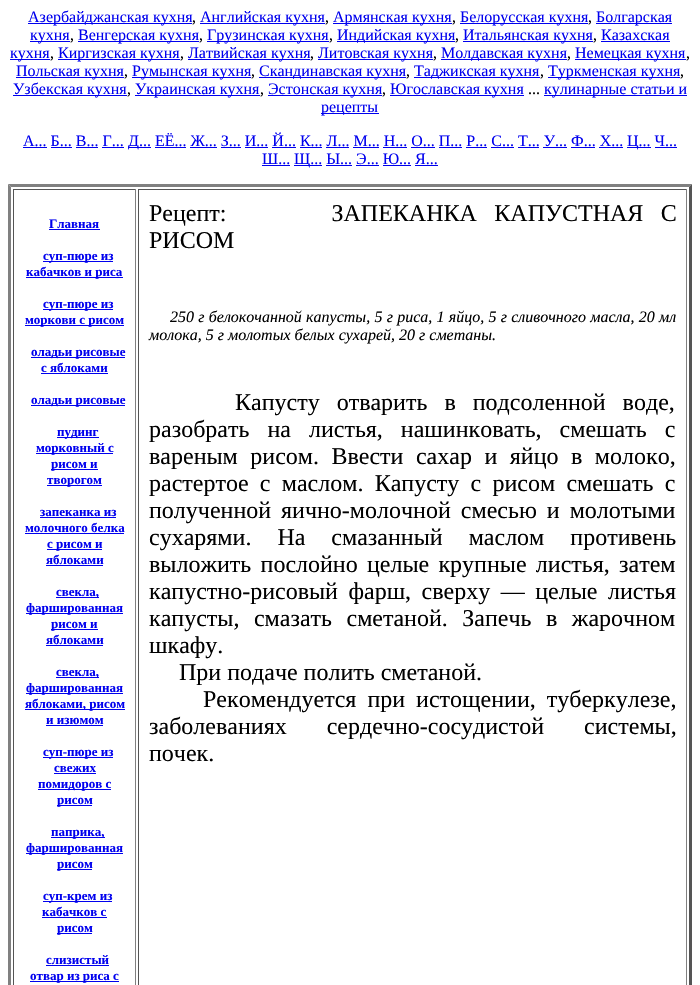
void draw(SkCanvas* canvas) {
    SkPaint paint;
    paint.setAntiAlias(true);
    auto face = [&](const char* family, int weight, float size, bool italic = false) {
        SkFontStyle style(weight, SkFontStyle::kNormal_Width,
            italic ? SkFontStyle::kItalic_Slant : SkFontStyle::kUpright_Slant);
        SkFont result(fontMgr->matchFamilyStyle(family, style), size);
        result.setSubpixel(true);
        return result;
    };
    auto write = [&](const char* s, float x, float y, const SkFont& font, SkColor color) {
        SkPaint ink(SkColor4f::FromColor(color));
        ink.setAntiAlias(true);
        canvas->drawString(s, x, y, font, ink);
    };
    auto writeSpaced = [&](const char* s, float x, float y, const SkFont& font, const SkPaint& ink, float letter, float word) {
        std::vector<SkGlyphID> glyphs(font.countText(s, strlen(s), SkTextEncoding::kUTF8));
        std::vector<float> xs(glyphs.size());
        font.textToGlyphs(s, strlen(s), SkTextEncoding::kUTF8, glyphs);
        font.getXPos(glyphs, xs, x);
        float extra = 0;
        for (size_t i = 0; i < glyphs.size(); i++) {
            xs[i] += extra;
            extra += letter + word * (glyphs[i] == font.unicharToGlyph(' '));
        }
        canvas->drawTextBlob(SkTextBlob::MakeFromPosHGlyphs(glyphs, xs, y, font), 0, 0, ink);
    };
    auto block = [&](float x, float y, float w, float h, SkColor color) {
        SkPaint ink(SkColor4f::FromColor(color));
        ink.setAntiAlias(true);
        canvas->drawRect(SkRect::MakeXYWH(x, y, w, h), ink);
    };
    canvas->clear(SK_ColorWHITE);
    block(28, 23, 164, 1, SkColorSetRGB(0, 0, 238));
    auto kFont1 = face("Liberation Serif", 400, 16);
    write("Азербайджанская кухня", 28, 22, kFont1, SkColorSetRGB(0, 0, 238));
    write(",", 192, 22, kFont1, SK_ColorBLACK);
    block(200, 23, 125, 1, SkColorSetRGB(0, 0, 238));
    write("Английская кухня", 200, 22, kFont1, SkColorSetRGB(0, 0, 238));
    write(",", 325, 22, kFont1, SK_ColorBLACK);
    block(333, 23, 119, 1, SkColorSetRGB(0, 0, 238));
    write("Армянская кухня", 333, 22, kFont1, SkColorSetRGB(0, 0, 238));
    write(",", 452, 22, kFont1, SK_ColorBLACK);
    block(460, 23, 128, 1, SkColorSetRGB(0, 0, 238));
    write("Белорусская кухня", 460, 22, kFont1, SkColorSetRGB(0, 0, 238));
    write(",", 588, 22, kFont1, SK_ColorBLACK);
    block(596, 23, 76, 1, SkColorSetRGB(0, 0, 238));
    write("Болгарская", 596, 22, kFont1, SkColorSetRGB(0, 0, 238));
    block(30, 41, 40, 1, SkColorSetRGB(0, 0, 238));
    write("кухня", 30, 40, kFont1, SkColorSetRGB(0, 0, 238));
    write(",", 70, 40, kFont1, SK_ColorBLACK);
    block(78, 41, 121, 1, SkColorSetRGB(0, 0, 238));
    write("Венгерская кухня", 78, 40, kFont1, SkColorSetRGB(0, 0, 238));
    write(",", 199, 40, kFont1, SK_ColorBLACK);
    block(207, 41, 122, 1, SkColorSetRGB(0, 0, 238));
    write("Грузинская кухня", 207, 40, kFont1, SkColorSetRGB(0, 0, 238));
    write(",", 329, 40, kFont1, SK_ColorBLACK);
    block(337, 41, 118, 1, SkColorSetRGB(0, 0, 238));
    write("Индийская кухня", 337, 40, kFont1, SkColorSetRGB(0, 0, 238));
    write(",", 455, 40, kFont1, SK_ColorBLACK);
    block(463, 41, 130, 1, SkColorSetRGB(0, 0, 238));
    write("Итальянская кухня", 463, 40, kFont1, SkColorSetRGB(0, 0, 238));
    write(",", 593, 40, kFont1, SK_ColorBLACK);
    write("Казахская", 601, 40, kFont1, SkColorSetRGB(0, 0, 238));
    block(601, 41, 69, 1, SkColorSetRGB(0, 0, 238));
    block(10, 59, 40, 1, SkColorSetRGB(0, 0, 238));
    write("кухня", 10, 58, kFont1, SkColorSetRGB(0, 0, 238));
    write(",", 50, 58, kFont1, SK_ColorBLACK);
    block(58, 59, 122, 1, SkColorSetRGB(0, 0, 238));
    write("Киргизская кухня", 58, 58, kFont1, SkColorSetRGB(0, 0, 238));
    write(",", 180, 58, kFont1, SK_ColorBLACK);
    block(188, 59, 122, 1, SkColorSetRGB(0, 0, 238));
    write("Латвийская кухня", 188, 58, kFont1, SkColorSetRGB(0, 0, 238));
    write(",", 310, 58, kFont1, SK_ColorBLACK);
    block(318, 59, 115, 1, SkColorSetRGB(0, 0, 238));
    write("Литовская кухня", 318, 58, kFont1, SkColorSetRGB(0, 0, 238));
    write(",", 433, 58, kFont1, SK_ColorBLACK);
    block(441, 59, 126, 1, SkColorSetRGB(0, 0, 238));
    write("Молдавская кухня", 441, 58, kFont1, SkColorSetRGB(0, 0, 238));
    write(",", 567, 58, kFont1, SK_ColorBLACK);
    block(575, 59, 111, 1, SkColorSetRGB(0, 0, 238));
    write("Немецкая кухня", 575, 58, kFont1, SkColorSetRGB(0, 0, 238));
    write(",", 686, 58, kFont1, SK_ColorBLACK);
    block(16, 77, 108, 1, SkColorSetRGB(0, 0, 238));
    write("Польская кухня", 16, 76, kFont1, SkColorSetRGB(0, 0, 238));
    write(",", 124, 76, kFont1, SK_ColorBLACK);
    block(132, 77, 119, 1, SkColorSetRGB(0, 0, 238));
    write("Румынская кухня", 132, 76, kFont1, SkColorSetRGB(0, 0, 238));
    write(",", 251, 76, kFont1, SK_ColorBLACK);
    block(259, 77, 147, 1, SkColorSetRGB(0, 0, 238));
    write("Скандинавская кухня", 259, 76, kFont1, SkColorSetRGB(0, 0, 238));
    write(",", 406, 76, kFont1, SK_ColorBLACK);
    block(414, 77, 126, 1, SkColorSetRGB(0, 0, 238));
    write("Таджикская кухня", 414, 76, kFont1, SkColorSetRGB(0, 0, 238));
    write(",", 540, 76, kFont1, SK_ColorBLACK);
    block(548, 77, 132, 1, SkColorSetRGB(0, 0, 238));
    write("Туркменская кухня", 548, 76, kFont1, SkColorSetRGB(0, 0, 238));
    write(",", 680, 76, kFont1, SK_ColorBLACK);
    block(13, 95, 114, 1, SkColorSetRGB(0, 0, 238));
    write("Узбекская кухня", 13, 94, kFont1, SkColorSetRGB(0, 0, 238));
    write(",", 127, 94, kFont1, SK_ColorBLACK);
    block(135, 95, 125, 1, SkColorSetRGB(0, 0, 238));
    write("Украинская кухня", 135, 94, kFont1, SkColorSetRGB(0, 0, 238));
    write(",", 260, 94, kFont1, SK_ColorBLACK);
    block(268, 95, 114, 1, SkColorSetRGB(0, 0, 238));
    write("Эстонская кухня", 268, 94, kFont1, SkColorSetRGB(0, 0, 238));
    write(",", 382, 94, kFont1, SK_ColorBLACK);
    block(390, 95, 134, 1, SkColorSetRGB(0, 0, 238));
    write("Югославская кухня", 390, 94, kFont1, SkColorSetRGB(0, 0, 238));
    write("...", 528, 94, kFont1, SK_ColorBLACK);
    block(544, 95, 143, 1, SkColorSetRGB(0, 0, 238));
    write("кулинарные статьи и", 544, 94, kFont1, SkColorSetRGB(0, 0, 238));
    block(321, 113, 58, 1, SkColorSetRGB(0, 0, 238));
    write("рецепты", 321, 112, kFont1, SkColorSetRGB(0, 0, 238));
    write("А... Б... В... Г...", 23, 146, kFont1, SkColorSetRGB(0, 0, 238));
    block(23, 147, 24, 1, SkColorSetRGB(0, 0, 238));
    block(128, 147, 23, 1, SkColorSetRGB(0, 0, 238));
    write("Д... ЕЁ... Ж... З... И... Й... К... Л... М... Н... О... П... Р... С... Т... У... Ф... Х...", 128, 146, kFont1, SkColorSetRGB(0, 0, 238));
    block(627, 147, 24, 1, SkColorSetRGB(0, 0, 238));
    write("Ц... Ч...", 627, 146, kFont1, SkColorSetRGB(0, 0, 238));
    block(51, 147, 21, 1, SkColorSetRGB(0, 0, 238));
    block(76, 147, 22, 1, SkColorSetRGB(0, 0, 238));
    block(102, 147, 22, 1, SkColorSetRGB(0, 0, 238));
    block(155, 147, 31, 1, SkColorSetRGB(0, 0, 238));
    block(190, 147, 27, 1, SkColorSetRGB(0, 0, 238));
    block(221, 147, 20, 1, SkColorSetRGB(0, 0, 238));
    block(245, 147, 23, 1, SkColorSetRGB(0, 0, 238));
    block(272, 147, 24, 1, SkColorSetRGB(0, 0, 238));
    block(300, 147, 22, 1, SkColorSetRGB(0, 0, 238));
    block(326, 147, 23, 1, SkColorSetRGB(0, 0, 238));
    block(353, 147, 26, 1, SkColorSetRGB(0, 0, 238));
    block(383, 147, 24, 1, SkColorSetRGB(0, 0, 238));
    block(411, 147, 24, 1, SkColorSetRGB(0, 0, 238));
    block(439, 147, 23, 1, SkColorSetRGB(0, 0, 238));
    block(466, 147, 21, 1, SkColorSetRGB(0, 0, 238));
    block(491, 147, 23, 1, SkColorSetRGB(0, 0, 238));
    block(518, 147, 21, 1, SkColorSetRGB(0, 0, 238));
    block(543, 147, 24, 1, SkColorSetRGB(0, 0, 238));
    block(571, 147, 24, 1, SkColorSetRGB(0, 0, 238));
    block(599, 147, 24, 1, SkColorSetRGB(0, 0, 238));
    block(655, 147, 22, 1, SkColorSetRGB(0, 0, 238));
    write("Ш...", 262, 164, kFont1, SkColorSetRGB(0, 0, 238));
    block(262, 165, 28, 1, SkColorSetRGB(0, 0, 238));
    block(294, 165, 28, 1, SkColorSetRGB(0, 0, 238));
    write("Щ... Ы... Э... Ю... Я...", 294, 164, kFont1, SkColorSetRGB(0, 0, 238));
    block(326, 165, 26, 1, SkColorSetRGB(0, 0, 238));
    block(356, 165, 23, 1, SkColorSetRGB(0, 0, 238));
    block(383, 165, 28, 1, SkColorSetRGB(0, 0, 238));
    block(415, 165, 23, 1, SkColorSetRGB(0, 0, 238));
    paint.setColor(SkColorSetRGB(128, 128, 128));
    canvas->drawPath(SkPathBuilder().moveTo(8, 184).lineTo(692, 184).lineTo(689, 187).lineTo(11, 187).close().detach(), paint);
    paint.setColor(SkColorSetRGB(85, 85, 85));
    canvas->drawPath(SkPathBuilder().moveTo(692, 184).lineTo(692, 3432).lineTo(689, 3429).lineTo(689, 187).close().detach(), paint);
    paint.setColor(SkColorSetRGB(128, 128, 128));
    canvas->drawPath(SkPathBuilder().moveTo(8, 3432).lineTo(8, 184).lineTo(11, 187).lineTo(11, 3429).close().detach(), paint);
    block(13, 189, 123, 1, SkColorSetRGB(85, 85, 85));
    block(135, 189, 1, 796, SkColorSetRGB(128, 128, 128));
    block(13, 189, 1, 796, SkColorSetRGB(85, 85, 85));
    auto kFont2 = face("Liberation Serif", 700, 13);
    write("Главная", 49, 228, kFont2, SkColorSetRGB(0, 0, 238));
    block(49, 229, 51, 1, SkColorSetRGB(0, 0, 238));
    block(43, 261, 70, 1, SkColorSetRGB(0, 0, 238));
    write("суп-пюре из", 43, 260, kFont2, SkColorSetRGB(0, 0, 238));
    block(26, 277, 97, 1, SkColorSetRGB(0, 0, 238));
    write("кабачков и риса", 26, 276, kFont2, SkColorSetRGB(0, 0, 238));
    block(43, 309, 70, 1, SkColorSetRGB(0, 0, 238));
    write("суп-пюре из", 43, 308, kFont2, SkColorSetRGB(0, 0, 238));
    block(25, 325, 99, 1, SkColorSetRGB(0, 0, 238));
    write("моркови с рисом", 25, 324, kFont2, SkColorSetRGB(0, 0, 238));
    block(31, 357, 94, 1, SkColorSetRGB(0, 0, 238));
    write("оладьи рисовые", 31, 356, kFont2, SkColorSetRGB(0, 0, 238));
    write("с яблоками", 41, 372, kFont2, SkColorSetRGB(0, 0, 238));
    block(41, 373, 67, 1, SkColorSetRGB(0, 0, 238));
    block(31, 405, 94, 1, SkColorSetRGB(0, 0, 238));
    write("оладьи рисовые", 31, 404, kFont2, SkColorSetRGB(0, 0, 238));
    block(57, 437, 42, 1, SkColorSetRGB(0, 0, 238));
    write("пудинг", 57, 436, kFont2, SkColorSetRGB(0, 0, 238));
    block(36, 453, 77, 1, SkColorSetRGB(0, 0, 238));
    write("морковный с", 36, 452, kFont2, SkColorSetRGB(0, 0, 238));
    block(51, 469, 47, 1, SkColorSetRGB(0, 0, 238));
    write("рисом и", 51, 468, kFont2, SkColorSetRGB(0, 0, 238));
    block(47, 485, 55, 1, SkColorSetRGB(0, 0, 238));
    write("творогом", 47, 484, kFont2, SkColorSetRGB(0, 0, 238));
    write("запеканка из", 40, 516, kFont2, SkColorSetRGB(0, 0, 238));
    block(40, 517, 76, 1, SkColorSetRGB(0, 0, 238));
    write("молочного белка", 25, 532, kFont2, SkColorSetRGB(0, 0, 238));
    block(25, 533, 99, 1, SkColorSetRGB(0, 0, 238));
    block(47, 549, 55, 1, SkColorSetRGB(0, 0, 238));
    write("с рисом и", 47, 548, kFont2, SkColorSetRGB(0, 0, 238));
    write("яблоками", 46, 564, kFont2, SkColorSetRGB(0, 0, 238));
    block(46, 565, 57, 1, SkColorSetRGB(0, 0, 238));
    block(56, 597, 43, 1, SkColorSetRGB(0, 0, 238));
    write("свекла,", 56, 596, kFont2, SkColorSetRGB(0, 0, 238));
    block(26, 613, 97, 1, SkColorSetRGB(0, 0, 238));
    write("фаршированная", 26, 612, kFont2, SkColorSetRGB(0, 0, 238));
    block(51, 629, 47, 1, SkColorSetRGB(0, 0, 238));
    write("рисом и", 51, 628, kFont2, SkColorSetRGB(0, 0, 238));
    write("яблоками", 46, 644, kFont2, SkColorSetRGB(0, 0, 238));
    block(46, 645, 57, 1, SkColorSetRGB(0, 0, 238));
    block(56, 677, 43, 1, SkColorSetRGB(0, 0, 238));
    write("свекла,", 56, 676, kFont2, SkColorSetRGB(0, 0, 238));
    block(26, 693, 97, 1, SkColorSetRGB(0, 0, 238));
    write("фаршированная", 26, 692, kFont2, SkColorSetRGB(0, 0, 238));
    block(25, 709, 100, 1, SkColorSetRGB(0, 0, 238));
    write("яблоками, рисом", 25, 708, kFont2, SkColorSetRGB(0, 0, 238));
    write("и изюмом", 46, 724, kFont2, SkColorSetRGB(0, 0, 238));
    block(46, 725, 57, 1, SkColorSetRGB(0, 0, 238));
    block(43, 757, 70, 1, SkColorSetRGB(0, 0, 238));
    write("суп-пюре из", 43, 756, kFont2, SkColorSetRGB(0, 0, 238));
    write("свежих", 54, 772, kFont2, SkColorSetRGB(0, 0, 238));
    block(54, 773, 42, 1, SkColorSetRGB(0, 0, 238));
    block(38, 789, 73, 1, SkColorSetRGB(0, 0, 238));
    write("помидоров с", 38, 788, kFont2, SkColorSetRGB(0, 0, 238));
    block(57, 805, 35, 1, SkColorSetRGB(0, 0, 238));
    write("рисом", 57, 804, kFont2, SkColorSetRGB(0, 0, 238));
    block(51, 837, 54, 1, SkColorSetRGB(0, 0, 238));
    write("паприка,", 51, 836, kFont2, SkColorSetRGB(0, 0, 238));
    block(26, 853, 97, 1, SkColorSetRGB(0, 0, 238));
    write("фаршированная", 26, 852, kFont2, SkColorSetRGB(0, 0, 238));
    block(57, 869, 35, 1, SkColorSetRGB(0, 0, 238));
    write("рисом", 57, 868, kFont2, SkColorSetRGB(0, 0, 238));
    block(43, 901, 69, 1, SkColorSetRGB(0, 0, 238));
    write("суп-крем из", 43, 900, kFont2, SkColorSetRGB(0, 0, 238));
    write("кабачков с", 42, 916, kFont2, SkColorSetRGB(0, 0, 238));
    block(42, 917, 65, 1, SkColorSetRGB(0, 0, 238));
    block(57, 933, 35, 1, SkColorSetRGB(0, 0, 238));
    write("рисом", 57, 932, kFont2, SkColorSetRGB(0, 0, 238));
    write("слизистый", 46, 964, kFont2, SkColorSetRGB(0, 0, 238));
    block(46, 965, 63, 1, SkColorSetRGB(0, 0, 238));
    block(30, 981, 89, 1, SkColorSetRGB(0, 0, 238));
    write("отвар из риса с", 30, 980, kFont2, SkColorSetRGB(0, 0, 238));
    block(138, 189, 549, 1, SkColorSetRGB(85, 85, 85));
    block(686, 189, 1, 796, SkColorSetRGB(128, 128, 128));
    block(138, 189, 1, 796, SkColorSetRGB(85, 85, 85));
    auto kFont3 = face("Liberation Serif", 400, 24);
    paint.setColor(SK_ColorBLACK);
    writeSpaced("Рецепт:      ЗАПЕКАНКА КАПУСТНАЯ С", 149, 221, kFont3, paint, 0, 11.5f);
    write("РИСОМ", 149, 248, kFont3, SK_ColorBLACK);
    auto kFont4 = face("Liberation Serif", 400, 16, true);
    writeSpaced("250 г белокочанной капусты, 5 г риса, 1 яйцо, 5 г сливочного масла, 20 мл", 170, 322, kFont4, paint, 0, 0.25f);
    write("молока, 5 г молотых белых сухарей, 20 г сметаны.", 149, 340, kFont4, SK_ColorBLACK);
    writeSpaced("Капусту отварить в подсоленной воде,", 235, 410, kFont3, paint, 0, 11);
    writeSpaced("разобрать на листья, нашинковать, смешать с", 149, 437, kFont3, paint, 0, 12);
    writeSpaced("вареным рисом. Ввести сахар и яйцо в молоко,", 149, 464, kFont3, paint, 0, 6.5f);
    writeSpaced("растертое с маслом. Капусту с рисом смешать с", 149, 491, kFont3, paint, 0, 5.25f);
    writeSpaced("полученной яично-молочной смесью и молотыми", 149, 518, kFont3, paint, 0, 4);
    writeSpaced("сухарями. На смазанный маслом противень", 149, 545, kFont3, paint, 0, 20);
    writeSpaced("выложить послойно целые крупные листья, затем", 149, 572, kFont3, paint, 0, 3.25f);
    writeSpaced("капустно-рисовый фарш, сверху — целые листья", 149, 599, kFont3, paint, 0, 4.5f);
    writeSpaced("капусты, смазать сметаной. Запечь в жарочном", 149, 626, kFont3, paint, 0, 8.5f);
    write("шкафу.", 149, 653, kFont3, SK_ColorBLACK);
    write("При подаче полить сметаной.", 179, 680, kFont3, SK_ColorBLACK);
    writeSpaced("Рекомендуется при истощении, туберкулезе,", 203, 707, kFont3, paint, 0, 5);
    writeSpaced("заболеваниях сердечно-сосудистой системы,", 149, 734, kFont3, paint, 0, 34);
    write("почек.", 149, 761, kFont3, SK_ColorBLACK);
}
